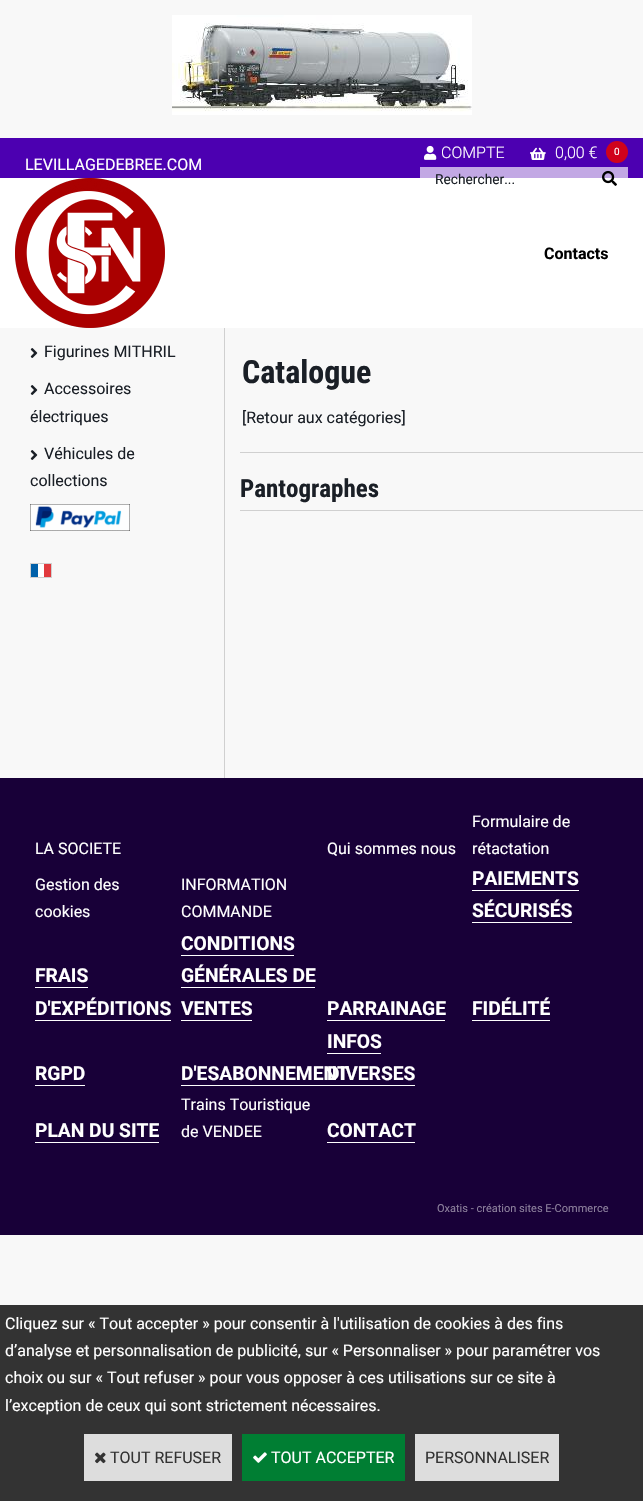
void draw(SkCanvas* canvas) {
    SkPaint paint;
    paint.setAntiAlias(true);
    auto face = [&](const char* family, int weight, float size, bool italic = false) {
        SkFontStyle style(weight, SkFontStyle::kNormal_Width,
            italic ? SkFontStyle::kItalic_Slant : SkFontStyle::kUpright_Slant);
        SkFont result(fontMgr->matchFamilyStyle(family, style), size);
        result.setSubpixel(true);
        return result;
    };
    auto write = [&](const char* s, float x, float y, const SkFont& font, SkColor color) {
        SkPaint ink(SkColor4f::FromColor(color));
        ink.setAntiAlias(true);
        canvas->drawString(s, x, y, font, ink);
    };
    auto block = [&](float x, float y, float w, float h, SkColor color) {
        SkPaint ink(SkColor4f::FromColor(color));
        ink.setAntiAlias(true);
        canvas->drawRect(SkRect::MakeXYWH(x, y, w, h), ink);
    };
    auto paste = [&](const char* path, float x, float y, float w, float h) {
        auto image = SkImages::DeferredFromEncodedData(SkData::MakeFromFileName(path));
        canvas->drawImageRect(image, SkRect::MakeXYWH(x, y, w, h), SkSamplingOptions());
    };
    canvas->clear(SkColorSetRGB(248, 248, 248));
    paste("pic1.png", 172, 15, 300, 100);
    block(0, 178, 643, 150, SK_ColorWHITE);
    block(0, 138, 643, 40, SkColorSetRGB(76, 0, 177));
    block(420, 167, 208, 11, SkColorSetRGB(194, 168, 228));
    auto kFont1 = face("Roboto", 400, 16);
    write("LEVILLAGEDEBREE.COM", 25, 170, kFont1, SK_ColorWHITE);
    paste("pic2.png", 424, 145, 13, 15);
    auto kFont2 = face("Roboto", 300, 16);
    write("COMPTE", 441, 158, kFont2, SK_ColorWHITE);
    paste("pic3.png", 530, 147, 16, 13);
    write("0,00 €", 555, 158, kFont2, SK_ColorWHITE);
    paint.setColor(SkColorSetRGB(208, 2, 27));
    canvas->drawCircle(617, 152, 11, paint);
    auto kFont3 = face("Roboto", 400, 10);
    write("0", 614, 155, kFont3, SK_ColorWHITE);
    auto kFont4 = face("Roboto", 400, 13.75f);
    write("Rechercher...", 435, 184, kFont4, SkColorSetRGB(26, 31, 38));
    paste("pic4.png", 602, 170, 15, 16);
    paste("pic5.png", 15, 178, 150, 150);
    auto kFont5 = face("Roboto", 700, 16);
    write("Contacts", 544, 259, kFont5, SK_ColorBLACK);
    block(224, 328, 1, 450, SkColorSetRGB(208, 208, 208));
    paste("pic6.png", 30, 348, 8, 10);
    write("Figurines MITHRIL", 44, 357, kFont1, SkColorSetRGB(26, 31, 38));
    paste("pic6.png", 30, 385, 8, 10);
    write("Accessoires", 44, 394, kFont1, SkColorSetRGB(26, 31, 38));
    write("électriques", 30, 422, kFont1, SkColorSetRGB(26, 31, 38));
    paste("pic6.png", 30, 450, 8, 10);
    write("Véhicules de", 44, 459, kFont1, SkColorSetRGB(26, 31, 38));
    write("collections", 30, 486, kFont1, SkColorSetRGB(26, 31, 38));
    paste("pic7.png", 30, 504, 100, 27);
    paste("pic8.png", 31, 564, 20, 13);
    paint.setStyle(SkPaint::kStroke_Style);
    paint.setStrokeWidth(1);
    paint.setColor(SkColorSetRGB(208, 208, 208));
    canvas->drawRect(SkRect::MakeXYWH(30.5f, 563.5f, 21, 14), paint);
    block(240, 452, 403, 1, SkColorSetRGB(208, 208, 208));
    auto kFont6 = face("Roboto Condensed", 700, 32);
    write("Catalogue", 242, 383, kFont6, SkColorSetRGB(26, 31, 38));
    write("[Retour aux catégories]", 242, 423, kFont1, SkColorSetRGB(26, 31, 38));
    block(240, 510, 403, 1, SkColorSetRGB(208, 208, 208));
    auto kFont7 = face("Roboto Condensed", 700, 25);
    write("Pantographes", 240, 497, kFont7, SkColorSetRGB(26, 31, 38));
    block(0, 778, 643, 457, SkColorSetRGB(24, 0, 56));
    write("LA SOCIETE", 35, 854, kFont1, SK_ColorWHITE);
    write("Qui sommes nous", 327, 854, kFont1, SK_ColorWHITE);
    write("Formulaire de", 472, 827, kFont1, SK_ColorWHITE);
    write("rétactation", 472, 854, kFont1, SK_ColorWHITE);
    write("Gestion des", 35, 890, kFont1, SK_ColorWHITE);
    write("cookies", 35, 917, kFont1, SK_ColorWHITE);
    write("INFORMATION", 181, 890, kFont1, SK_ColorWHITE);
    write("COMMANDE", 181, 917, kFont1, SK_ColorWHITE);
    auto kFont8 = face("Roboto", 700, 19.25f);
    write("PAIEMENTS", 472, 885, kFont8, SK_ColorWHITE);
    block(472, 890, 107, 1, SK_ColorWHITE);
    write("SÉCURISÉS", 472, 917, kFont8, SK_ColorWHITE);
    block(472, 922, 100, 1, SK_ColorWHITE);
    write("FRAIS", 35, 982, kFont8, SK_ColorWHITE);
    block(35, 987, 53, 1, SK_ColorWHITE);
    write("D'EXPÉDITIONS", 35, 1015, kFont8, SK_ColorWHITE);
    block(35, 1020, 136, 1, SK_ColorWHITE);
    write("CONDITIONS", 181, 950, kFont8, SK_ColorWHITE);
    block(181, 955, 113, 1, SK_ColorWHITE);
    write("GÉNÉRALES DE", 181, 982, kFont8, SK_ColorWHITE);
    block(181, 987, 134, 1, SK_ColorWHITE);
    write("VENTES", 181, 1015, kFont8, SK_ColorWHITE);
    block(181, 1020, 71, 1, SK_ColorWHITE);
    write("PARRAINAGE", 327, 1015, kFont8, SK_ColorWHITE);
    block(327, 1020, 118, 1, SK_ColorWHITE);
    write("FIDÉLITÉ", 472, 1015, kFont8, SK_ColorWHITE);
    block(472, 1020, 78, 1, SK_ColorWHITE);
    write("RGPD", 35, 1080, kFont8, SK_ColorWHITE);
    block(35, 1085, 50, 1, SK_ColorWHITE);
    write("D'ESABONNEMENT", 181, 1080, kFont8, SK_ColorWHITE);
    block(181, 1085, 234, 1, SK_ColorWHITE);
    write("INFOS", 327, 1048, kFont8, SK_ColorWHITE);
    block(327, 1053, 54, 1, SK_ColorWHITE);
    write("DIVERSES", 327, 1080, kFont8, SK_ColorWHITE);
    write("PLAN DU SITE", 35, 1137, kFont8, SK_ColorWHITE);
    block(35, 1142, 124, 1, SK_ColorWHITE);
    write("Trains Touristique", 181, 1110, kFont1, SK_ColorWHITE);
    write("de VENDEE", 181, 1137, kFont1, SK_ColorWHITE);
    write("CONTACT", 327, 1137, kFont8, SK_ColorWHITE);
    block(327, 1142, 88, 1, SK_ColorWHITE);
    auto kFont9 = face("Roboto", 400, 11);
    write("Oxatis - création sites E-Commerce", 437, 1212, kFont9, SkColorSetRGB(140, 128, 156));
    block(0, 1305, 643, 196, SkColorSetRGB(51, 51, 51));
    write("Cliquez sur « Tout accepter » pour consentir à l'utilisation de cookies à des fins", 5, 1329, kFont1, SK_ColorWHITE);
    write("d’analyse et personnalisation de publicité, sur « Personnaliser » pour paramétrer vos", 5, 1356, kFont1, SK_ColorWHITE);
    write("choix ou sur « Tout refuser » pour vous opposer à ces utilisations sur ce site à", 5, 1383, kFont1, SK_ColorWHITE);
    write("l’exception de ceux qui sont strictement nécessaires.", 5, 1411, kFont1, SK_ColorWHITE);
    block(84, 1434, 148, 47, SkColorSetRGB(221, 221, 221));
    paste("pic9.png", 95, 1452, 11, 12);
    write("TOUT REFUSER", 110, 1463, kFont1, SkColorSetRGB(51, 51, 51));
    block(242, 1434, 163, 47, SkColorSetRGB(0, 126, 51));
    paste("pic10.png", 253, 1452, 14, 11);
    write("TOUT ACCEPTER", 271, 1463, kFont1, SK_ColorWHITE);
    block(415, 1434, 144, 47, SkColorSetRGB(221, 221, 221));
    write("PERSONNALISER", 425, 1463, kFont1, SkColorSetRGB(51, 51, 51));
}
